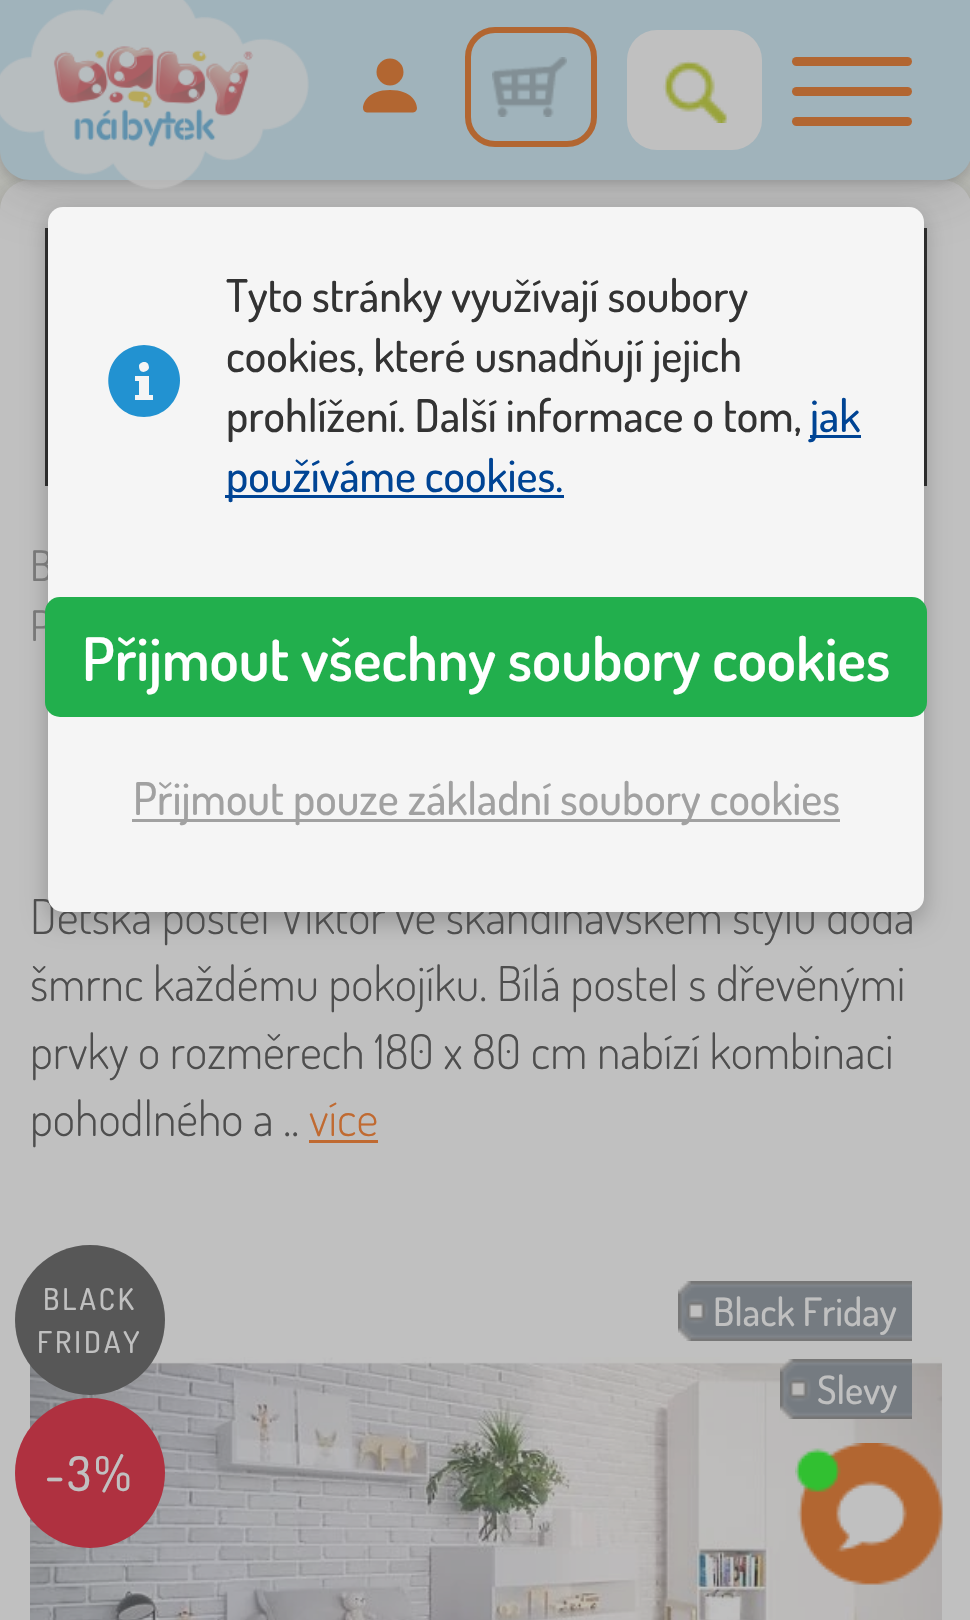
void draw(SkCanvas* canvas) {
    SkPaint paint;
    paint.setAntiAlias(true);
    auto face = [&](const char* family, int weight, float size, bool italic = false) {
        SkFontStyle style(weight, SkFontStyle::kNormal_Width,
            italic ? SkFontStyle::kItalic_Slant : SkFontStyle::kUpright_Slant);
        SkFont result(fontMgr->matchFamilyStyle(family, style), size);
        result.setSubpixel(true);
        return result;
    };
    auto write = [&](const char* s, float x, float y, const SkFont& font, SkColor color) {
        SkPaint ink(SkColor4f::FromColor(color));
        ink.setAntiAlias(true);
        canvas->drawString(s, x, y, font, ink);
    };
    auto writeSpaced = [&](const char* s, float x, float y, const SkFont& font, const SkPaint& ink, float letter, float word) {
        std::vector<SkGlyphID> glyphs(font.countText(s, strlen(s), SkTextEncoding::kUTF8));
        std::vector<float> xs(glyphs.size());
        font.textToGlyphs(s, strlen(s), SkTextEncoding::kUTF8, glyphs);
        font.getXPos(glyphs, xs, x);
        float extra = 0;
        for (size_t i = 0; i < glyphs.size(); i++) {
            xs[i] += extra;
            extra += letter + word * (glyphs[i] == font.unicharToGlyph(' '));
        }
        canvas->drawTextBlob(SkTextBlob::MakeFromPosHGlyphs(glyphs, xs, y, font), 0, 0, ink);
    };
    auto block = [&](float x, float y, float w, float h, SkColor color) {
        SkPaint ink(SkColor4f::FromColor(color));
        ink.setAntiAlias(true);
        canvas->drawRect(SkRect::MakeXYWH(x, y, w, h), ink);
    };
    auto card = [&](float x, float y, float w, float h, float radius, SkColor color) {
        SkPaint ink(SkColor4f::FromColor(color));
        ink.setAntiAlias(true);
        canvas->drawRoundRect(SkRect::MakeXYWH(x, y, w, h), radius, radius, ink);
    };
    auto paste = [&](const char* path, float x, float y, float w, float h) {
        auto image = SkImages::DeferredFromEncodedData(SkData::MakeFromFileName(path));
        canvas->drawImageRect(image, SkRect::MakeXYWH(x, y, w, h), SkSamplingOptions());
    };
    canvas->clear(SK_ColorWHITE);
    {
        const SkColor colors[] = {SkColorSetRGB(192, 192, 192), SkColorSetRGB(144, 155, 68)};
        const float stops[] = {0, 0.2f};
        const SkPoint ends[] = {{486, 0}, {486, 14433}};
        paint.setShader(SkGradientShader::MakeLinear(ends, colors, stops, 2, SkTileMode::kClamp));
        paint.setAlpha(255);
    }
    canvas->drawRect(SkRect::MakeXYWH(0, 150, 970, 60), paint);
    paint.setShader(nullptr);
    paint.setColor(SkColorSetARGB(48, 49, 49, 49));
    paint.setMaskFilter(SkMaskFilter::MakeBlur(kNormal_SkBlurStyle, 30));
    canvas->drawRoundRect(SkRect::MakeXYWH(0, 198, 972, 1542), 30, 30, paint);
    paint.setMaskFilter(nullptr);
    paint.setColor(SkColorSetARGB(51, 49, 49, 49));
    paint.setMaskFilter(SkMaskFilter::MakeBlur(kNormal_SkBlurStyle, 12));
    canvas->drawRoundRect(SkRect::MakeXYWH(0, 192, 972, 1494), 30, 30, paint);
    paint.setMaskFilter(nullptr);
    card(0, 180, 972, 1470, 30, SkColorSetRGB(192, 192, 192));
    block(45, 228, 882, 258, SkColorSetRGB(49, 49, 49));
    paint.setColor(SkColorSetARGB(38, 49, 49, 49));
    paint.setMaskFilter(SkMaskFilter::MakeBlur(kNormal_SkBlurStyle, 30));
    canvas->drawRoundRect(SkRect::MakeXYWH(0, 15, 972, 180), 30, 30, paint);
    paint.setMaskFilter(nullptr);
    paint.setColor(SkColorSetARGB(54, 49, 49, 49));
    paint.setMaskFilter(SkMaskFilter::MakeBlur(kNormal_SkBlurStyle, 6));
    canvas->drawRoundRect(SkRect::MakeXYWH(0, 3, 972, 180), 30, 30, paint);
    paint.setMaskFilter(nullptr);
    paint.setColor(SkColorSetRGB(160, 179, 187));
    canvas->drawPath(SkPathBuilder().moveTo(0, 0).lineTo(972, 0).lineTo(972, 150).cubicTo(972, 166.5f, 958.5f, 180, 942, 180).lineTo(30, 180).cubicTo(13.5f, 180, 0, 166.5f, 0, 150).close().detach(), paint);
    paste("pic1.png", 0, 0, 309, 189);
    paste("pic2.png", 362, 58, 55, 55);
    paste("pic3.png", 492, 57, 75, 60);
    paint.setStyle(SkPaint::kStroke_Style);
    paint.setStrokeWidth(6);
    paint.setColor(SkColorSetRGB(178, 102, 49));
    canvas->drawRoundRect(SkRect::MakeXYWH(468, 30, 126, 114), 27, 27, paint);
    card(627, 30, 135, 120, 30, SkColorSetRGB(192, 192, 192));
    paste("pic4.png", 663, 60, 66, 63);
    card(792, 57, 120, 9, 4.5f, SkColorSetRGB(178, 102, 49));
    card(792, 87, 120, 9, 4.5f, SkColorSetRGB(178, 102, 49));
    card(792, 117, 120, 9, 4.5f, SkColorSetRGB(178, 102, 49));
    paint.setStyle(SkPaint::kFill_Style);
    paint.setColor(SkColorSetARGB(61, 0, 0, 0));
    paint.setMaskFilter(SkMaskFilter::MakeBlur(kNormal_SkBlurStyle, 12));
    canvas->drawRoundRect(SkRect::MakeXYWH(48, 216, 876, 705), 15, 15, paint);
    paint.setMaskFilter(nullptr);
    auto kFont1 = face("Dosis", 400, 42);
    write("B", 30, 581, kFont1, SkColorSetRGB(120, 120, 120));
    write("P", 30, 641, kFont1, SkColorSetRGB(120, 120, 120));
    auto kFont2 = face("Dosis", 300, 48);
    write("Dětská postel Viktor ve skandinávském stylu dodá", 30, 934, kFont2, SkColorSetRGB(78, 78, 78));
    card(48, 207, 876, 705, 15, SkColorSetRGB(245, 245, 245));
    paint.setColor(SkColorSetRGB(34, 146, 209));
    canvas->drawPath(SkPathBuilder().moveTo(153, 400).lineTo(135, 400).lineTo(135, 395).lineTo(139, 395).lineTo(139, 381).lineTo(135, 381).lineTo(135, 376).lineTo(149, 376).lineTo(149, 395).lineTo(153, 395).close().moveTo(139, 366).cubicTo(139, 362, 149, 359, 149, 368).cubicTo(148, 372, 139, 375, 139, 366).close().moveTo(144, 345).cubicTo(137, 345, 130, 347, 124, 351).cubicTo(95, 371, 109, 417, 144, 417).cubicTo(179, 417, 194, 371, 164, 351).cubicTo(158, 347, 151, 345, 144, 345).close().detach(), paint);
    auto kFont3 = face("Dosis", 500, 45);
    write("Tyto stránky využívají soubory", 226, 312, kFont3, SkColorSetRGB(51, 51, 51));
    write("cookies, které usnadňují jejich", 226, 372, kFont3, SkColorSetRGB(51, 51, 51));
    write("prohlížení. Další informace o tom,", 226, 432, kFont3, SkColorSetRGB(51, 51, 51));
    block(810, 435, 51, 3, SkColorSetRGB(0, 68, 148));
    write("jak", 810, 432, kFont3, SkColorSetRGB(0, 68, 148));
    block(225, 495, 339, 3, SkColorSetRGB(0, 68, 148));
    write("používáme cookies.", 226, 492, kFont3, SkColorSetRGB(0, 68, 148));
    card(45, 597, 882, 120, 15, SkColorSetRGB(34, 175, 77));
    auto kFont4 = face("Dosis", 600, 60);
    write("Přijmout všechny soubory cookies", 82, 681, kFont4, SK_ColorWHITE);
    block(132, 819, 708, 3, SkColorSetRGB(161, 161, 161));
    write("Přijmout pouze základní soubory cookies", 133, 815, kFont3, SkColorSetRGB(161, 161, 161));
    write("šmrnc každému pokojíku. Bílá postel s dřevěnými", 30, 1001, kFont2, SkColorSetRGB(78, 78, 78));
    write("prvky o rozměrech 180 x 80 cm nabízí kombinaci", 30, 1069, kFont2, SkColorSetRGB(78, 78, 78));
    write("pohodlného a ..", 30, 1136, kFont2, SkColorSetRGB(78, 78, 78));
    write("více", 309, 1136, kFont2, SkColorSetRGB(192, 106, 49));
    block(309, 1140, 69, 3, SkColorSetRGB(192, 106, 49));
    paste("pic7.png", 30, 1357, 912, 263);
    paint.setColor(SkColorSetRGB(87, 87, 87));
    canvas->drawCircle(90, 1320, 75, paint);
    auto kFont5 = face("Dosis", 500, 30);
    paint.setColor(SkColorSetRGB(192, 192, 192));
    writeSpaced("BLACK", 43, 1310, kFont5, paint, 3, 0);
    writeSpaced("FRIDAY", 37, 1353, kFont5, paint, 3, 0);
    paint.setColor(SkColorSetRGB(175, 49, 64));
    canvas->drawCircle(90, 1473, 75, paint);
    auto kFont6 = face("Dosis", 500, 48);
    paint.setColor(SkColorSetRGB(192, 192, 192));
    writeSpaced("-3%", 45, 1491, kFont6, paint, 3, 0);
    paste("pic5.png", 678, 1281, 234, 60);
    auto kFont7 = face("Dosis", 500, 39);
    write("Black Friday", 713, 1326, kFont7, SkColorSetRGB(192, 192, 192));
    paste("pic6.png", 780, 1359, 132, 60);
    write("Slevy", 817, 1404, kFont7, SkColorSetRGB(192, 192, 192));
    paste("pic8.png", 795, 1443, 148, 142);
}
